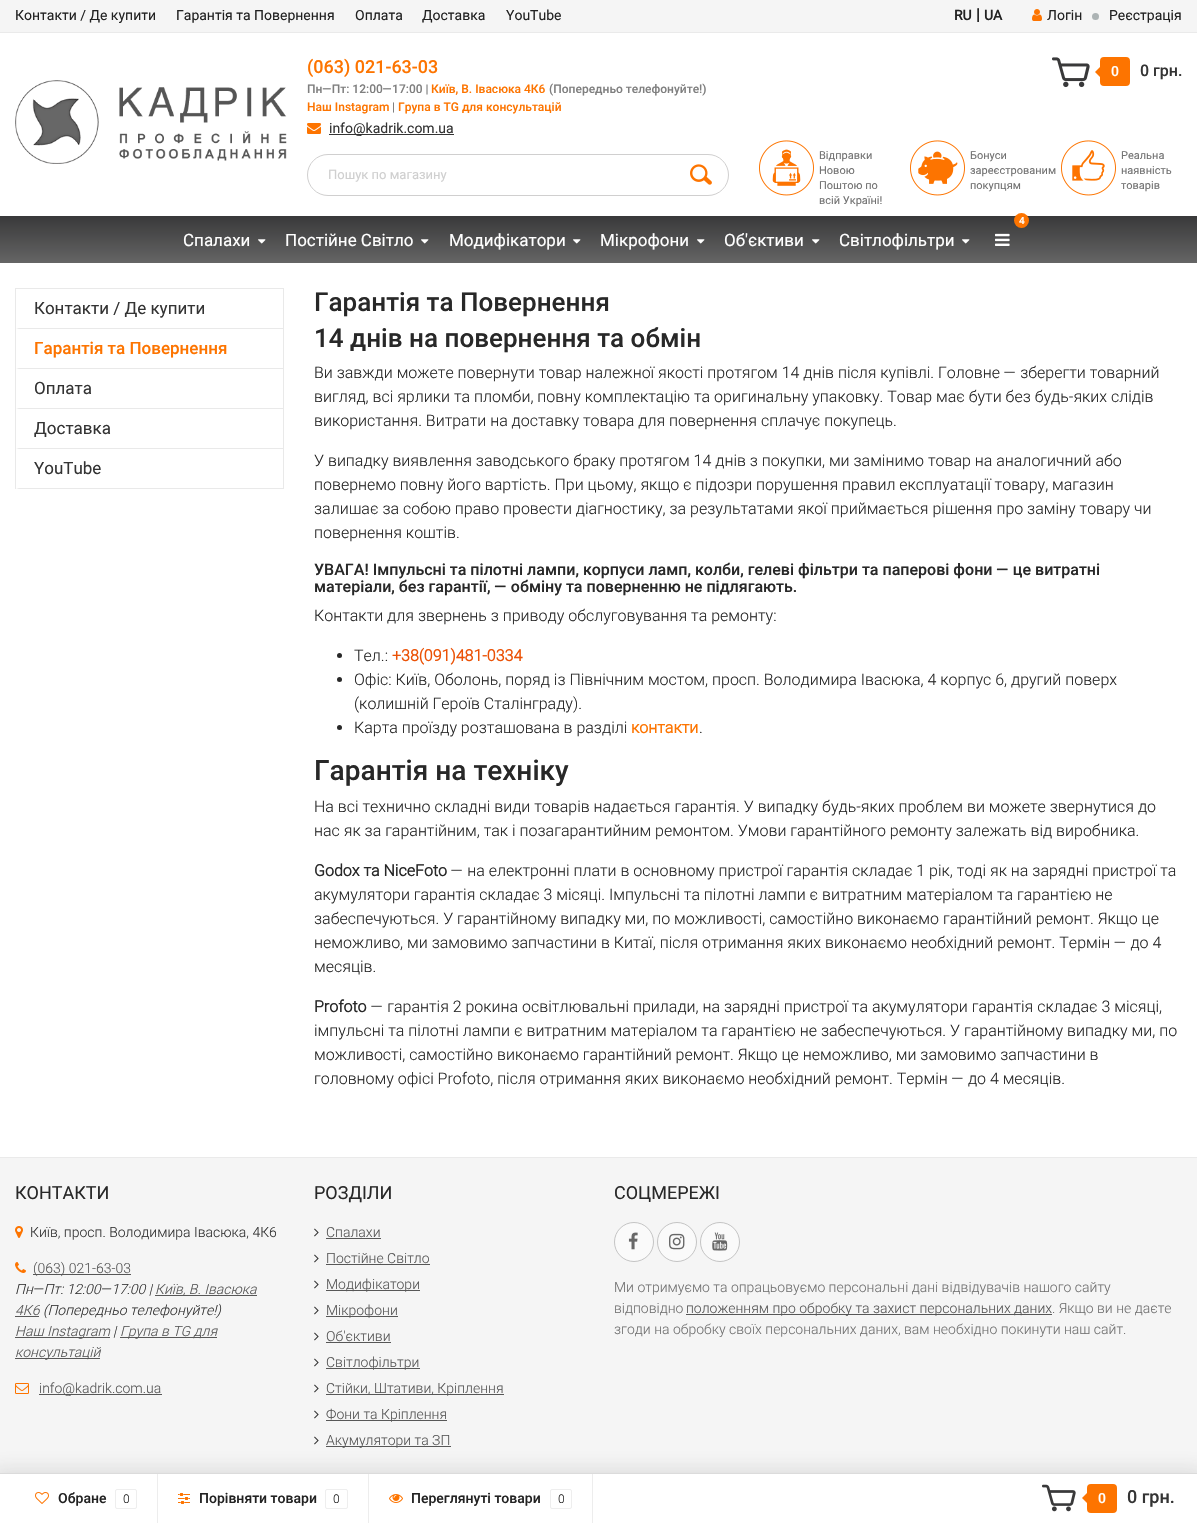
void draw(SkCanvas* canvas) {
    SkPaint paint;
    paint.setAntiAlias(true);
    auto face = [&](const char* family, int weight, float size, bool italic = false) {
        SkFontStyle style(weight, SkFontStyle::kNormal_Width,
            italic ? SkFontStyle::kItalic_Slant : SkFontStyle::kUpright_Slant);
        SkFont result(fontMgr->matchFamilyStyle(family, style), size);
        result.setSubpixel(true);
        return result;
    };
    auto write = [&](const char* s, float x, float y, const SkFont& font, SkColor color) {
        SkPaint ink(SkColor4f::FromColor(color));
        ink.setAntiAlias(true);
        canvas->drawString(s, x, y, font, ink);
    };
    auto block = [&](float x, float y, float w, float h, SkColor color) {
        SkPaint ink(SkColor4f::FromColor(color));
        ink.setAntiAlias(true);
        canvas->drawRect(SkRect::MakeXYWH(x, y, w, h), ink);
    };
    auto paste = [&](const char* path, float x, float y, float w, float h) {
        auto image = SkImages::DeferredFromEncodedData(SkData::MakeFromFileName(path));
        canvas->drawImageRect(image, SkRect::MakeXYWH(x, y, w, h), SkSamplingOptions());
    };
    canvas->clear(SK_ColorWHITE);
    block(0, 0, 1197, 32, SkColorSetRGB(245, 245, 245));
    block(0, 32, 1197, 1, SkColorSetRGB(234, 234, 234));
    auto kFont1 = face("Roboto", 400, 14);
    write("Контакти / Де купити", 15, 20, kFont1, SkColorSetRGB(34, 34, 34));
    write("Гарантія та Повернення", 176, 20, kFont1, SkColorSetRGB(34, 34, 34));
    write("Оплата", 355, 20, kFont1, SkColorSetRGB(34, 34, 34));
    write("Доставка", 422, 20, kFont1, SkColorSetRGB(34, 34, 34));
    write("YouTube", 506, 20, kFont1, SkColorSetRGB(34, 34, 34));
    auto kFont2 = face("Roboto", 700, 14);
    write("RU", 954, 20, kFont2, SkColorSetRGB(34, 34, 34));
    auto kFont3 = face("Roboto", 700, 16);
    write("|", 976, 20, kFont3, SkColorSetRGB(40, 40, 40));
    write("UA", 984, 20, kFont2, SkColorSetRGB(34, 34, 34));
    paste("pic1.png", 1032, 9, 10, 12);
    write("Логін", 1047, 20, kFont1, SkColorSetRGB(34, 34, 34));
    paint.setColor(SkColorSetRGB(172, 179, 180));
    canvas->drawCircle(1095.5f, 16.5f, 3.5f, paint);
    write("Реєстрація", 1109, 20, kFont1, SkColorSetRGB(34, 34, 34));
    paste("pic2.png", 15, 80, 272, 84);
    auto kFont4 = face("Roboto", 500, 18);
    write("(063) 021-63-03", 307, 73, kFont4, SkColorSetRGB(253, 116, 0));
    auto kFont5 = face("Roboto", 500, 12);
    write("Пн—Пт: 12:00—17:00 |", 307, 93, kFont5, SkColorSetRGB(127, 127, 127));
    write("Київ, В. Івасюка 4К6", 431, 93, kFont5, SkColorSetRGB(253, 116, 0));
    write("(Попередньо телефонуйте!)", 549, 93, kFont5, SkColorSetRGB(127, 127, 127));
    write("Наш Instagram", 307, 111, kFont5, SkColorSetRGB(253, 116, 0));
    write("|", 392, 111, kFont5, SkColorSetRGB(127, 127, 127));
    write("Група в TG для консультацій", 398, 111, kFont5, SkColorSetRGB(253, 116, 0));
    paste("pic3.png", 307, 123, 14, 11);
    block(329, 134, 125, 1, SkColorSetRGB(52, 52, 52));
    write("info@kadrik.com.ua", 329, 133, kFont1, SkColorSetRGB(52, 52, 52));
    paste("pic4.png", 1052, 57, 38, 31);
    paint.setColor(SkColorSetRGB(253, 116, 0));
    canvas->drawRoundRect(SkRect::MakeXYWH(1102, 59, 26, 25), 2, 2, paint);
    paint.setStyle(SkPaint::kStroke_Style);
    paint.setStrokeWidth(4);
    canvas->drawRoundRect(SkRect::MakeXYWH(1102, 59, 26, 25), 2, 2, paint);
    paint.setStyle(SkPaint::kFill_Style);
    canvas->drawPath(SkPathBuilder().moveTo(1104, 63).lineTo(1104, 81).lineTo(1095, 72).close().detach(), paint);
    auto kFont6 = face("Roboto", 500, 14);
    write("0", 1111, 76, kFont6, SK_ColorWHITE);
    auto kFont7 = face("Roboto", 500, 16);
    write("0 грн.", 1140, 76, kFont7, SkColorSetRGB(52, 52, 52));
    paint.setStyle(SkPaint::kStroke_Style);
    paint.setStrokeWidth(1);
    paint.setColor(SkColorSetRGB(208, 207, 207));
    canvas->drawRoundRect(SkRect::MakeXYWH(307.5f, 154.5f, 421, 41), 20.5f, 20.5f, paint);
    auto kFont8 = face("Roboto", 400, 13);
    write("Пошук по магазину", 328, 179, kFont8, SkColorSetRGB(207, 207, 207));
    paste("pic5.png", 690, 164, 22, 21);
    paste("pic6.png", 759, 140, 55, 56);
    auto kFont9 = face("Roboto", 400, 11);
    write("Відправки", 819, 159, kFont9, SkColorSetRGB(113, 113, 113));
    write("Новою", 819, 174, kFont9, SkColorSetRGB(113, 113, 113));
    write("Поштою по", 819, 189, kFont9, SkColorSetRGB(113, 113, 113));
    write("всій Україні!", 819, 204, kFont9, SkColorSetRGB(113, 113, 113));
    paste("pic7.png", 910, 140, 55, 56);
    write("Бонуси", 970, 159, kFont9, SkColorSetRGB(113, 113, 113));
    write("зареєстрованим", 970, 174, kFont9, SkColorSetRGB(113, 113, 113));
    write("покупцям", 970, 189, kFont9, SkColorSetRGB(113, 113, 113));
    paste("pic8.png", 1061, 140, 55, 56);
    write("Реальна", 1121, 159, kFont9, SkColorSetRGB(113, 113, 113));
    write("наявність", 1121, 174, kFont9, SkColorSetRGB(113, 113, 113));
    write("товарів", 1121, 189, kFont9, SkColorSetRGB(113, 113, 113));
    paint.setStyle(SkPaint::kFill_Style);
    {
        const SkColor colors[] = {SkColorSetRGB(57, 57, 58), SkColorSetRGB(101, 101, 101)};
        const float stops[] = {0, 1};
        const SkPoint ends[] = {{599, 216}, {599, 263}};
        paint.setShader(SkGradientShader::MakeLinear(ends, colors, stops, 2, SkTileMode::kClamp));
        paint.setAlpha(255);
    }
    canvas->drawRect(SkRect::MakeXYWH(0, 216, 1197, 47), paint);
    paint.setShader(nullptr);
    paint.setColor(SkColorSetRGB(253, 116, 0));
    canvas->drawCircle(1021.5f, 220.5f, 7.5f, paint);
    auto kFont10 = face("Roboto", 500, 10);
    write("4", 1019, 224, kFont10, SK_ColorWHITE);
    paste("pic9.png", 995, 233, 15, 13);
    auto kFont11 = face("Roboto", 400, 17);
    write("Спалахи", 183, 246, kFont11, SK_ColorWHITE);
    paste("pic10.png", 258, 239, 8, 5);
    write("Постійне Світло", 285, 246, kFont11, SK_ColorWHITE);
    paste("pic10.png", 421, 239, 8, 5);
    write("Модифікатори", 449, 246, kFont11, SK_ColorWHITE);
    paste("pic10.png", 573, 239, 8, 5);
    write("Мікрофони", 600, 246, kFont11, SK_ColorWHITE);
    paste("pic10.png", 697, 239, 8, 5);
    write("Об'єктиви", 724, 246, kFont11, SK_ColorWHITE);
    paste("pic10.png", 812, 239, 8, 5);
    write("Світлофільтри", 839, 246, kFont11, SK_ColorWHITE);
    paste("pic10.png", 962, 239, 8, 5);
    block(15, 288, 269, 1, SkColorSetRGB(233, 233, 233));
    block(283, 288, 1, 201, SkColorSetRGB(233, 233, 233));
    block(15, 288, 1, 201, SkColorSetRGB(233, 233, 233));
    paint.setColor(SkColorSetRGB(233, 233, 233));
    canvas->drawPath(SkPathBuilder().moveTo(283, 329).lineTo(16, 329).lineTo(19, 328).lineTo(283, 328).close().detach(), paint);
    write("Контакти / Де купити", 34, 314, kFont11, SkColorSetRGB(52, 52, 52));
    canvas->drawPath(SkPathBuilder().moveTo(283, 369).lineTo(16, 369).lineTo(19, 368).lineTo(283, 368).close().detach(), paint);
    auto kFont12 = face("Roboto", 500, 17);
    write("Гарантія та Повернення", 34, 354, kFont12, SkColorSetRGB(253, 116, 0));
    canvas->drawPath(SkPathBuilder().moveTo(283, 409).lineTo(16, 409).lineTo(19, 408).lineTo(283, 408).close().detach(), paint);
    write("Оплата", 34, 394, kFont11, SkColorSetRGB(52, 52, 52));
    canvas->drawPath(SkPathBuilder().moveTo(283, 449).lineTo(16, 449).lineTo(19, 448).lineTo(283, 448).close().detach(), paint);
    write("Доставка", 34, 434, kFont11, SkColorSetRGB(52, 52, 52));
    canvas->drawPath(SkPathBuilder().moveTo(283, 489).lineTo(16, 489).lineTo(19, 488).lineTo(283, 488).close().detach(), paint);
    write("YouTube", 34, 474, kFont11, SkColorSetRGB(52, 52, 52));
    auto kFont13 = face("Roboto", 500, 26);
    write("Гарантія та Повернення", 314, 311, kFont13, SkColorSetRGB(40, 40, 40));
    write("14 днів на повернення та обмін", 314, 347, kFont13, SkColorSetRGB(40, 40, 40));
    auto kFont14 = face("Roboto", 300, 16);
    write("Ви завжди можете повернути товар належної якості протягом 14 днів після купівлі. Головне — зберегти товарний", 314, 378, kFont14, SkColorSetRGB(40, 40, 40));
    write("вигляд, всі ярлики та пломби, повну комплектацію та оригинальну упаковку. Товар має бути без будь-яких слідів", 314, 402, kFont14, SkColorSetRGB(40, 40, 40));
    write("використання. Витрати на доставку товара для повернення сплачує покупець.", 314, 426, kFont14, SkColorSetRGB(40, 40, 40));
    write("У випадку виявлення заводського браку протягом 14 днів з покупки, ми замінимо товар на аналогичний або", 314, 466, kFont14, SkColorSetRGB(40, 40, 40));
    write("повернемо повну його вартість. При цьому, якщо є підозри порушення правил експлуатації товару, магазин", 314, 490, kFont14, SkColorSetRGB(40, 40, 40));
    write("залишає за собою право провести діагностику, за результатами якої приймається рішення про заміну товару чи", 314, 514, kFont14, SkColorSetRGB(40, 40, 40));
    write("повернення коштів.", 314, 538, kFont14, SkColorSetRGB(40, 40, 40));
    write("УВАГА! Імпульсні та пілотні лампи, корпуси ламп, колби, гелеві фільтри та паперові фони — це витратні", 314, 575, kFont7, SkColorSetRGB(40, 40, 40));
    write("матеріали, без гарантії, — обміну та поверненню не підлягають.", 314, 592, kFont7, SkColorSetRGB(40, 40, 40));
    write("Контакти для звернень з приводу обслуговування та ремонту:", 314, 621, kFont14, SkColorSetRGB(40, 40, 40));
    paint.setColor(SkColorSetRGB(40, 40, 40));
    canvas->drawCircle(339.5f, 655.5f, 2.5f, paint);
    write("Тел.:", 354, 661, kFont14, SkColorSetRGB(40, 40, 40));
    auto kFont15 = face("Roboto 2", 700, 16);
    write("+38(091)481-0334", 392, 661, kFont15, SkColorSetRGB(235, 82, 6));
    canvas->drawCircle(339.5f, 679.5f, 2.5f, paint);
    write("Офіс: Київ, Оболонь, поряд із Північним мостом, просп. Володимира Івасюка, 4 корпус 6, другий поверх", 354, 685, kFont14, SkColorSetRGB(40, 40, 40));
    write("(колишній Героїв Сталінграду).", 354, 709, kFont14, SkColorSetRGB(40, 40, 40));
    canvas->drawCircle(339.5f, 727.5f, 2.5f, paint);
    write("Карта проїзду розташована в разділі", 354, 733, kFont14, SkColorSetRGB(40, 40, 40));
    write("контакти", 631, 733, kFont15, SkColorSetRGB(253, 116, 0));
    write(".", 699, 733, kFont14, SkColorSetRGB(40, 40, 40));
    auto kFont16 = face("Roboto", 500, 28);
    write("Гарантія на техніку", 314, 780, kFont16, SkColorSetRGB(40, 40, 40));
    write("На всі технично складні види товарів надається гарантія. У випадку будь-яких проблем ви можете звернутися до", 314, 812, kFont14, SkColorSetRGB(40, 40, 40));
    write("нас як за гарантійним, так і позагарантийним ремонтом. Умови гарантійного ремонту залежать від виробника.", 314, 836, kFont14, SkColorSetRGB(40, 40, 40));
    write("Godox та NiceFoto", 314, 876, kFont15, SkColorSetRGB(40, 40, 40));
    write("— на електронні плати в основному пристрої гарантія складає 1 рік, тоді як на зарядні пристрої та", 451, 876, kFont14, SkColorSetRGB(40, 40, 40));
    write("акумулятори гарантія складає 3 місяці. Імпульсні та пілотні лампи є витратним матеріалом та гарантією не", 314, 900, kFont14, SkColorSetRGB(40, 40, 40));
    write("забеспечуються. У гарантійному випадку ми, по можливості, самостійно виконаємо гарантійний ремонт. Якщо це", 314, 924, kFont14, SkColorSetRGB(40, 40, 40));
    write("неможливо, ми замовимо запчастини в Китаї, після отримання яких виконаємо необхідний ремонт. Термін — до 4", 314, 948, kFont14, SkColorSetRGB(40, 40, 40));
    write("месяців.", 314, 972, kFont14, SkColorSetRGB(40, 40, 40));
    write("Profoto", 314, 1012, kFont15, SkColorSetRGB(40, 40, 40));
    write("— гарантія 2 рокина освітлювальні прилади, на зарядні пристрої та акумулятори гарантія складає 3 місяці,", 371, 1012, kFont14, SkColorSetRGB(40, 40, 40));
    write("імпульсні та пілотні лампи є витратним матеріалом та гарантією не забеспечуються. У гарантійному випадку ми, по", 314, 1036, kFont14, SkColorSetRGB(40, 40, 40));
    write("можливості, самостійно виконаємо гарантійний ремонт. Якщо це неможливо, ми замовимо запчастини в", 314, 1060, kFont14, SkColorSetRGB(40, 40, 40));
    write("головному офісі Profoto, після отримання яких виконаємо необхідний ремонт. Термін — до 4 месяців.", 314, 1084, kFont14, SkColorSetRGB(40, 40, 40));
    block(0, 1158, 1197, 315, SkColorSetRGB(245, 245, 245));
    block(0, 1157, 1197, 1, SkColorSetRGB(234, 234, 234));
    auto kFont17 = face("Roboto", 400, 18);
    write("КОНТАКТИ", 15, 1199, kFont17, SkColorSetRGB(40, 40, 40));
    paste("pic11.png", 15, 1226, 8, 12);
    auto kFont18 = face("Roboto", 300, 14);
    write("Київ, просп. Володимира Івасюка, 4К6", 30, 1237, kFont18, SkColorSetRGB(52, 52, 52));
    paste("pic12.png", 15, 1262, 11, 11);
    block(33, 1274, 98, 1, SkColorSetRGB(87, 87, 87));
    write("(063) 021-63-03", 33, 1273, kFont18, SkColorSetRGB(87, 87, 87));
    auto kFont19 = face("Roboto", 300, 14, true);
    write("Пн—Пт: 12:00—17:00 |", 15, 1294, kFont19, SkColorSetRGB(52, 52, 52));
    block(155, 1295, 102, 1, SkColorSetRGB(87, 87, 87));
    write("Київ, В. Івасюка", 155, 1294, kFont19, SkColorSetRGB(87, 87, 87));
    write("4К6", 15, 1315, kFont19, SkColorSetRGB(87, 87, 87));
    block(15, 1316, 24, 1, SkColorSetRGB(87, 87, 87));
    write("(Попередньо телефонуйте!)", 43, 1315, kFont19, SkColorSetRGB(52, 52, 52));
    block(15, 1337, 95, 1, SkColorSetRGB(87, 87, 87));
    write("Наш Instagram", 15, 1336, kFont19, SkColorSetRGB(87, 87, 87));
    write("|", 113, 1336, kFont19, SkColorSetRGB(52, 52, 52));
    block(120, 1337, 97, 1, SkColorSetRGB(87, 87, 87));
    write("Група в TG для", 120, 1336, kFont19, SkColorSetRGB(87, 87, 87));
    block(15, 1358, 85, 1, SkColorSetRGB(87, 87, 87));
    write("консультацій", 15, 1357, kFont19, SkColorSetRGB(87, 87, 87));
    paste("pic13.png", 15, 1383, 14, 11);
    block(39, 1394, 123, 1, SkColorSetRGB(87, 87, 87));
    write("info@kadrik.com.ua", 39, 1393, kFont18, SkColorSetRGB(87, 87, 87));
    write("РОЗДІЛИ", 314, 1199, kFont17, SkColorSetRGB(40, 40, 40));
    paste("pic14.png", 314, 1228, 5, 9);
    write("Спалахи", 326, 1237, kFont18, SkColorSetRGB(87, 87, 87));
    block(326, 1238, 55, 1, SkColorSetRGB(87, 87, 87));
    paste("pic14.png", 314, 1254, 5, 9);
    write("Постійне Світло", 326, 1263, kFont18, SkColorSetRGB(87, 87, 87));
    block(326, 1264, 104, 1, SkColorSetRGB(87, 87, 87));
    paste("pic14.png", 314, 1280, 5, 9);
    block(326, 1290, 94, 1, SkColorSetRGB(87, 87, 87));
    write("Модифікатори", 326, 1289, kFont18, SkColorSetRGB(87, 87, 87));
    paste("pic14.png", 314, 1306, 5, 9);
    block(326, 1316, 72, 1, SkColorSetRGB(87, 87, 87));
    write("Мікрофони", 326, 1315, kFont18, SkColorSetRGB(87, 87, 87));
    paste("pic14.png", 314, 1332, 5, 9);
    write("Об'єктиви", 326, 1341, kFont18, SkColorSetRGB(87, 87, 87));
    block(326, 1342, 65, 1, SkColorSetRGB(87, 87, 87));
    paste("pic14.png", 314, 1358, 5, 9);
    block(326, 1368, 94, 1, SkColorSetRGB(87, 87, 87));
    write("Світлофільтри", 326, 1367, kFont18, SkColorSetRGB(87, 87, 87));
    paste("pic14.png", 314, 1384, 5, 9);
    block(326, 1394, 178, 1, SkColorSetRGB(87, 87, 87));
    write("Стійки, Штативи, Кріплення", 326, 1393, kFont18, SkColorSetRGB(87, 87, 87));
    paste("pic14.png", 314, 1410, 5, 9);
    block(326, 1420, 121, 1, SkColorSetRGB(87, 87, 87));
    write("Фони та Кріплення", 326, 1419, kFont18, SkColorSetRGB(87, 87, 87));
    paste("pic14.png", 314, 1436, 5, 9);
    block(326, 1446, 125, 1, SkColorSetRGB(87, 87, 87));
    write("Акумулятори та ЗП", 326, 1445, kFont18, SkColorSetRGB(87, 87, 87));
    write("СОЦМЕРЕЖІ", 614, 1199, kFont17, SkColorSetRGB(40, 40, 40));
    paint.setColor(SkColorSetRGB(250, 250, 250));
    canvas->drawCircle(634, 1242, 19.5f, paint);
    paint.setStyle(SkPaint::kStroke_Style);
    paint.setColor(SkColorSetRGB(196, 196, 196));
    canvas->drawCircle(634, 1242, 19.5f, paint);
    paste("pic15.png", 628, 1232, 10, 18);
    paint.setStyle(SkPaint::kFill_Style);
    paint.setColor(SkColorSetRGB(250, 250, 250));
    canvas->drawCircle(677, 1242, 19.5f, paint);
    paint.setStyle(SkPaint::kStroke_Style);
    paint.setColor(SkColorSetRGB(196, 196, 196));
    canvas->drawCircle(677, 1242, 19.5f, paint);
    paste("pic16.png", 669, 1233, 16, 17);
    paint.setStyle(SkPaint::kFill_Style);
    paint.setColor(SkColorSetRGB(250, 250, 250));
    canvas->drawCircle(720, 1242, 19.5f, paint);
    paint.setStyle(SkPaint::kStroke_Style);
    paint.setColor(SkColorSetRGB(196, 196, 196));
    canvas->drawCircle(720, 1242, 19.5f, paint);
    paste("pic17.png", 712, 1232, 16, 19);
    write("Ми отримуємо та опрацьовуємо персональні дані відвідувачів нашого сайту", 614, 1292, kFont18, SkColorSetRGB(113, 113, 113));
    write("відповідно", 614, 1313, kFont18, SkColorSetRGB(113, 113, 113));
    block(686, 1314, 366, 1, SkColorSetRGB(87, 87, 87));
    write("положенням про обробку та захист персональних даних", 686, 1313, kFont18, SkColorSetRGB(87, 87, 87));
    write(". Якщо ви не даєте", 1052, 1313, kFont18, SkColorSetRGB(113, 113, 113));
    write("згоди на обробку своїх персональних даних, вам необхідно покинути наш сайт.", 614, 1334, kFont18, SkColorSetRGB(113, 113, 113));
    paint.setStyle(SkPaint::kFill_Style);
    paint.setColor(SkColorSetARGB(38, 50, 50, 50));
    paint.setMaskFilter(SkMaskFilter::MakeBlur(kNormal_SkBlurStyle, 10));
    canvas->drawRect(SkRect::MakeXYWH(-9, 1471, 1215, 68), paint);
    paint.setMaskFilter(nullptr);
    block(0, 1474, 1197, 49, SK_ColorWHITE);
    block(0, 1473, 1197, 1, SkColorSetRGB(219, 219, 219));
    block(157, 1474, 1, 49, SkColorSetRGB(237, 237, 237));
    paste("pic18.png", 35, 1492, 14, 12);
    write("Обране", 58, 1503, kFont6, SkColorSetRGB(34, 34, 34));
    paint.setStyle(SkPaint::kStroke_Style);
    paint.setColor(SkColorSetRGB(238, 238, 238));
    canvas->drawRoundRect(SkRect::MakeXYWH(115.5f, 1489.5f, 21, 19), 1.5f, 1.5f, paint);
    auto kFont20 = face("Roboto", 300, 12);
    write("0", 123, 1503, kFont20, SkColorSetRGB(34, 34, 34));
    block(368, 1474, 1, 49, SkColorSetRGB(237, 237, 237));
    paste("pic19.png", 178, 1493, 12, 11);
    write("Порівняти товари", 199, 1503, kFont6, SkColorSetRGB(34, 34, 34));
    canvas->drawRoundRect(SkRect::MakeXYWH(325.5f, 1489.5f, 22, 19), 1.5f, 1.5f, paint);
    write("0", 333, 1503, kFont20, SkColorSetRGB(34, 34, 34));
    block(592, 1474, 1, 49, SkColorSetRGB(237, 237, 237));
    paste("pic20.png", 389, 1494, 14, 9);
    write("Переглянуті товари", 411, 1503, kFont6, SkColorSetRGB(34, 34, 34));
    canvas->drawRoundRect(SkRect::MakeXYWH(550.5f, 1489.5f, 21, 19), 1.5f, 1.5f, paint);
    write("0", 558, 1503, kFont20, SkColorSetRGB(34, 34, 34));
    paste("pic21.png", 1042, 1484, 34, 28);
    paint.setStyle(SkPaint::kFill_Style);
    paint.setColor(SkColorSetRGB(253, 116, 0));
    canvas->drawRoundRect(SkRect::MakeXYWH(1089, 1486, 26, 25), 2, 2, paint);
    paint.setStyle(SkPaint::kStroke_Style);
    paint.setStrokeWidth(4);
    canvas->drawRoundRect(SkRect::MakeXYWH(1089, 1486, 26, 25), 2, 2, paint);
    paint.setStyle(SkPaint::kFill_Style);
    canvas->drawPath(SkPathBuilder().moveTo(1091, 1489).lineTo(1091, 1507).lineTo(1082, 1498).close().detach(), paint);
    write("0", 1098, 1503, kFont6, SK_ColorWHITE);
    write("0 грн.", 1127, 1503, kFont4, SkColorSetRGB(52, 52, 52));
}
